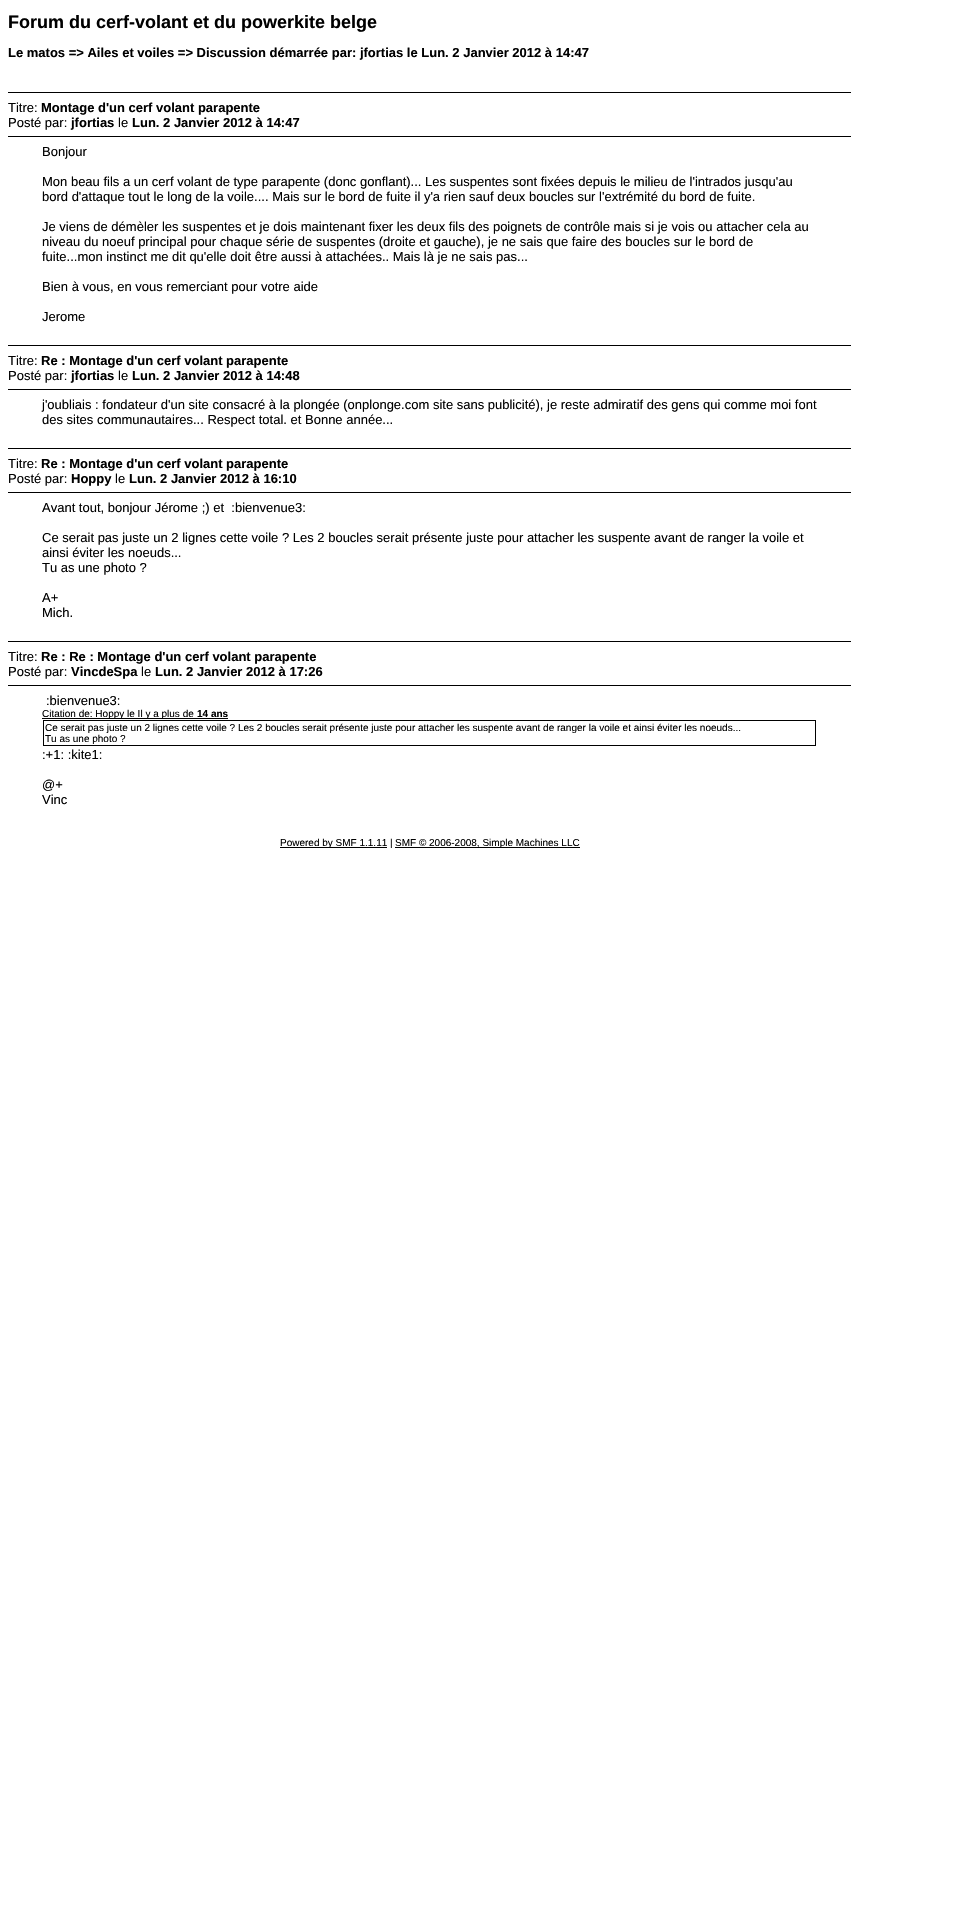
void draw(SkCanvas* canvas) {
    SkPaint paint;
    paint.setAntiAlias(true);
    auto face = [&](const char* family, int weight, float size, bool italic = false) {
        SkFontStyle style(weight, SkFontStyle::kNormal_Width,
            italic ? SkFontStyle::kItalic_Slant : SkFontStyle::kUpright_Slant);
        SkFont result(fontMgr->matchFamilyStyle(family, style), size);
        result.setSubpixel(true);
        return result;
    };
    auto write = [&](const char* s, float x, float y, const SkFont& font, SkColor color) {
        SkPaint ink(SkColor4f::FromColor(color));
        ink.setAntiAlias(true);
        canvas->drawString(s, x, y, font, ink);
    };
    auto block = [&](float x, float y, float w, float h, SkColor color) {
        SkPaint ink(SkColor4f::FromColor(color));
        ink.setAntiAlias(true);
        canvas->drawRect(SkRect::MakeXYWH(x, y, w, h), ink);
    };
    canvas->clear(SK_ColorWHITE);
    auto kFont1 = face("Liberation Sans", 700, 18);
    write("Forum du cerf-volant et du powerkite belge", 8, 28, kFont1, SK_ColorBLACK);
    auto kFont2 = face("Liberation Sans", 700, 13);
    write("Le matos => Ailes et voiles => Discussion démarrée par: jfortias le Lun. 2 Janvier 2012 à 14:47", 8, 57, kFont2, SK_ColorBLACK);
    block(8, 92, 843, 1, SK_ColorBLACK);
    auto kFont3 = face("Liberation Sans", 400, 13);
    write("Titre:", 8, 112, kFont3, SK_ColorBLACK);
    write("Montage d'un cerf volant parapente", 41, 112, kFont2, SK_ColorBLACK);
    write("Posté par:", 8, 127, kFont3, SK_ColorBLACK);
    write("jfortias", 71, 127, kFont2, SK_ColorBLACK);
    write("le", 118, 127, kFont3, SK_ColorBLACK);
    write("Lun. 2 Janvier 2012 à 14:47", 132, 127, kFont2, SK_ColorBLACK);
    block(8, 136, 843, 1, SK_ColorBLACK);
    write("Bonjour", 42, 156, kFont3, SK_ColorBLACK);
    write("Mon beau fils a un cerf volant de type parapente (donc gonflant)... Les suspentes sont fixées depuis le milieu de l'intrados jusqu'au", 42, 186, kFont3, SK_ColorBLACK);
    write("bord d'attaque tout le long de la voile.... Mais sur le bord de fuite il y'a rien sauf deux boucles sur l'extrémité du bord de fuite.", 42, 201, kFont3, SK_ColorBLACK);
    write("Je viens de démèler les suspentes et je dois maintenant fixer les deux fils des poignets de contrôle mais si je vois ou attacher cela au", 42, 231, kFont3, SK_ColorBLACK);
    write("niveau du noeuf principal pour chaque série de suspentes (droite et gauche), je ne sais que faire des boucles sur le bord de", 42, 246, kFont3, SK_ColorBLACK);
    write("fuite...mon instinct me dit qu'elle doit être aussi à attachées.. Mais là je ne sais pas...", 42, 261, kFont3, SK_ColorBLACK);
    write("Bien à vous, en vous remerciant pour votre aide", 42, 291, kFont3, SK_ColorBLACK);
    write("Jerome", 42, 321, kFont3, SK_ColorBLACK);
    block(8, 345, 843, 1, SK_ColorBLACK);
    write("Titre:", 8, 365, kFont3, SK_ColorBLACK);
    write("Re : Montage d'un cerf volant parapente", 41, 365, kFont2, SK_ColorBLACK);
    write("Posté par:", 8, 380, kFont3, SK_ColorBLACK);
    write("jfortias", 71, 380, kFont2, SK_ColorBLACK);
    write("le", 118, 380, kFont3, SK_ColorBLACK);
    write("Lun. 2 Janvier 2012 à 14:48", 132, 380, kFont2, SK_ColorBLACK);
    block(8, 389, 843, 1, SK_ColorBLACK);
    write("j'oubliais : fondateur d'un site consacré à la plongée (onplonge.com site sans publicité), je reste admiratif des gens qui comme moi font", 42, 409, kFont3, SK_ColorBLACK);
    write("des sites communautaires... Respect total. et Bonne année...", 42, 424, kFont3, SK_ColorBLACK);
    block(8, 448, 843, 1, SK_ColorBLACK);
    write("Titre:", 8, 468, kFont3, SK_ColorBLACK);
    write("Re : Montage d'un cerf volant parapente", 41, 468, kFont2, SK_ColorBLACK);
    write("Posté par:", 8, 483, kFont3, SK_ColorBLACK);
    write("Hoppy", 71, 483, kFont2, SK_ColorBLACK);
    write("le", 115, 483, kFont3, SK_ColorBLACK);
    write("Lun. 2 Janvier 2012 à 16:10", 129, 483, kFont2, SK_ColorBLACK);
    block(8, 492, 843, 1, SK_ColorBLACK);
    write("Avant tout, bonjour Jérome ;) et  :bienvenue3:", 42, 512, kFont3, SK_ColorBLACK);
    write("Ce serait pas juste un 2 lignes cette voile ? Les 2 boucles serait présente juste pour attacher les suspente avant de ranger la voile et", 42, 542, kFont3, SK_ColorBLACK);
    write("ainsi éviter les noeuds...", 42, 557, kFont3, SK_ColorBLACK);
    write("Tu as une photo ?", 42, 572, kFont3, SK_ColorBLACK);
    write("A+", 42, 602, kFont3, SK_ColorBLACK);
    write("Mich.", 42, 617, kFont3, SK_ColorBLACK);
    block(8, 641, 843, 1, SK_ColorBLACK);
    write("Titre:", 8, 661, kFont3, SK_ColorBLACK);
    write("Re : Re : Montage d'un cerf volant parapente", 41, 661, kFont2, SK_ColorBLACK);
    write("Posté par:", 8, 676, kFont3, SK_ColorBLACK);
    write("VincdeSpa", 71, 676, kFont2, SK_ColorBLACK);
    write("le", 141, 676, kFont3, SK_ColorBLACK);
    write("Lun. 2 Janvier 2012 à 17:26", 155, 676, kFont2, SK_ColorBLACK);
    block(8, 685, 843, 1, SK_ColorBLACK);
    write(":bienvenue3:", 46, 705, kFont3, SK_ColorBLACK);
    block(42, 718, 186, 1, SK_ColorBLACK);
    auto kFont4 = face("Liberation Sans", 400, 10);
    write("Citation de: Hoppy le Il y a plus de", 42, 717, kFont4, SK_ColorBLACK);
    auto kFont5 = face("Liberation Sans", 700, 10);
    write("14 ans", 197, 717, kFont5, SK_ColorBLACK);
    paint.setStyle(SkPaint::kStroke_Style);
    paint.setStrokeWidth(1);
    paint.setColor(SK_ColorBLACK);
    canvas->drawRect(SkRect::MakeXYWH(43.5f, 720.5f, 772, 25), paint);
    write("Ce serait pas juste un 2 lignes cette voile ? Les 2 boucles serait présente juste pour attacher les suspente avant de ranger la voile et ainsi éviter les noeuds...", 45, 731, kFont4, SK_ColorBLACK);
    write("Tu as une photo ?", 45, 742, kFont4, SK_ColorBLACK);
    write(":+1: :kite1:", 42, 759, kFont3, SK_ColorBLACK);
    write("@+", 42, 789, kFont3, SK_ColorBLACK);
    write("Vinc", 42, 804, kFont3, SK_ColorBLACK);
    block(280, 847, 107, 1, SK_ColorBLACK);
    write("Powered by SMF 1.1.11 |", 280, 846, kFont4, SK_ColorBLACK);
    block(395, 847, 185, 1, SK_ColorBLACK);
    write("SMF © 2006-2008, Simple Machines LLC", 395, 846, kFont4, SK_ColorBLACK);
}
